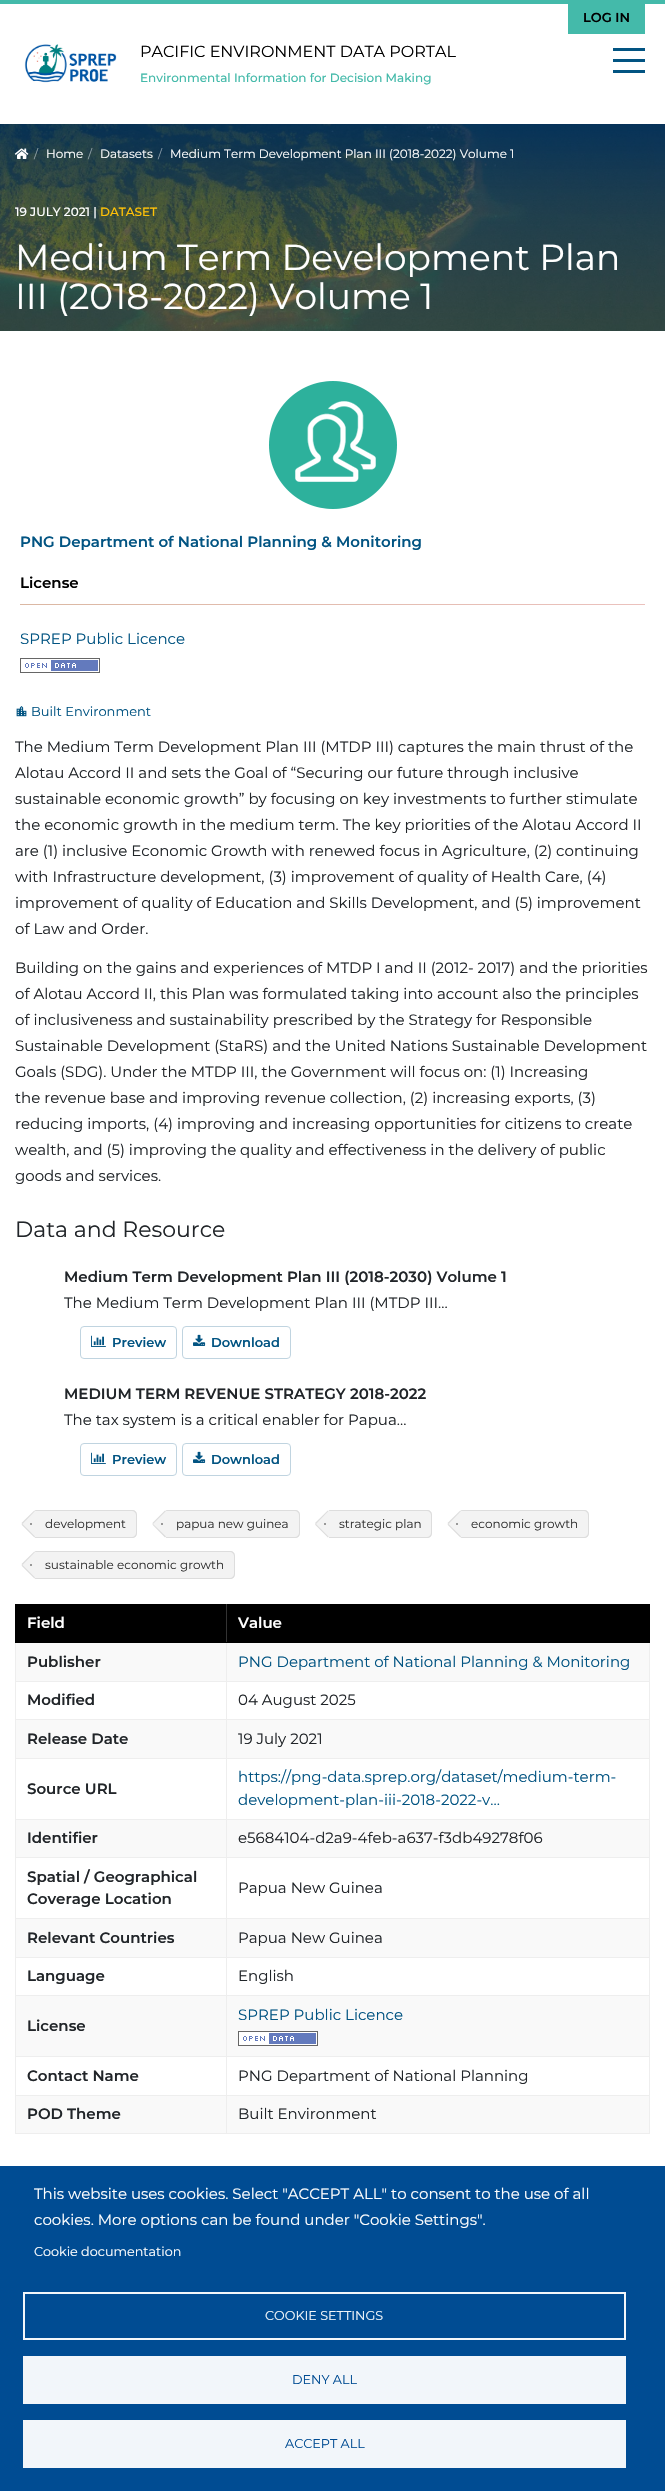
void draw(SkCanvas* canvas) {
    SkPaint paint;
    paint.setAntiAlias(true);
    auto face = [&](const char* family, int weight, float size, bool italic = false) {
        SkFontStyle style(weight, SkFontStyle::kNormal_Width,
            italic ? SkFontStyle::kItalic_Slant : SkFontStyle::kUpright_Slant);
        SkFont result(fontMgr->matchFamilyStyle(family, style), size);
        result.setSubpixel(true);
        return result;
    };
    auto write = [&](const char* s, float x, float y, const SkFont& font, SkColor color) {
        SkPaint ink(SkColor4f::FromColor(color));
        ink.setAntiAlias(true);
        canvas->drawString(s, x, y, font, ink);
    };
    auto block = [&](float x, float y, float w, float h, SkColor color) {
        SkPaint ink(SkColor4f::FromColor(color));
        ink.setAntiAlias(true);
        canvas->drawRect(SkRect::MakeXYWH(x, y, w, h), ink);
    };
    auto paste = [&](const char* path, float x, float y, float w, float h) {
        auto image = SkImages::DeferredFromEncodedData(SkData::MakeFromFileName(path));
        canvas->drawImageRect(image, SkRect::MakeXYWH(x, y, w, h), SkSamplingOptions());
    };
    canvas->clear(SK_ColorWHITE);
    block(0, 0, 665, 4, SkColorSetRGB(68, 186, 170));
    block(568, 4, 77, 30, SkColorSetRGB(68, 186, 170));
    auto kFont1 = face("Montserrat", 600, 13);
    write("LOG IN", 583, 22, kFont1, SK_ColorBLACK);
    paste("pic1.png", 24, 44, 93, 39);
    auto kFont2 = face("Montserrat", 400, 16);
    write("PACIFIC ENVIRONMENT DATA PORTAL", 140, 57, kFont2, SK_ColorBLACK);
    auto kFont3 = face("Montserrat", 500, 12);
    write("Environmental Information for Decision Making", 140, 82, kFont3, SkColorSetRGB(68, 186, 170));
    block(613, 59, 32, 3, SkColorSetRGB(2, 84, 130));
    block(613, 48, 32, 3, SkColorSetRGB(2, 84, 130));
    block(613, 70, 32, 3, SkColorSetRGB(2, 84, 130));
    paste("pic2.png", 0, 124, 665, 207);
    paste("pic3.png", 14, 148, 15, 11);
    auto kFont4 = face("Montserrat", 400, 12);
    write("/", 34, 158, kFont4, SkColorSetRGB(144, 160, 165));
    write("Home", 46, 158, kFont4, SK_ColorWHITE);
    write("/", 88, 158, kFont4, SkColorSetRGB(144, 160, 165));
    write("Datasets", 100, 158, kFont4, SK_ColorWHITE);
    write("/", 158, 158, kFont4, SkColorSetRGB(136, 154, 167));
    write("Medium Term Development Plan III (2018-2022) Volume 1", 170, 158, kFont4, SK_ColorWHITE);
    write("19 JULY 2021 |", 15, 216, kFont3, SK_ColorWHITE);
    write("DATASET", 100, 216, kFont3, SkColorSetRGB(255, 193, 7));
    auto kFont5 = face("Montserrat", 400, 36);
    write("Medium Term Development Plan", 15, 270, kFont5, SK_ColorWHITE);
    write("III (2018-2022) Volume 1", 15, 309, kFont5, SK_ColorWHITE);
    paste("pic4.png", 269, 381, 128, 128);
    auto kFont6 = face("Montserrat", 600, 15);
    write("PNG Department of National Planning & Monitoring", 20, 547, kFont6, SkColorSetRGB(2, 84, 130));
    write("License", 20, 588, kFont6, SK_ColorBLACK);
    {
        const SkColor colors[] = {SkColorSetRGB(219, 184, 163), SkColorSetRGB(235, 193, 189)};
        const float stops[] = {0, 1};
        const SkPoint ends[] = {{20, 605}, {645, 605}};
        paint.setShader(SkGradientShader::MakeLinear(ends, colors, stops, 2, SkTileMode::kClamp));
        paint.setAlpha(255);
    }
    canvas->drawRect(SkRect::MakeXYWH(20, 604, 625, 1), paint);
    auto kFont7 = face("Montserrat", 400, 15);
    write("SPREP Public Licence", 20, 644, kFont7, SkColorSetRGB(2, 84, 130));
    paste("pic5.png", 20, 658, 80, 15);
    paste("pic6.png", 16, 706, 11, 11);
    auto kFont8 = face("Montserrat", 400, 13);
    write("Built Environment", 31, 716, kFont8, SkColorSetRGB(2, 84, 130));
    write("The Medium Term Development Plan III (MTDP III) captures the main thrust of the", 15, 752, kFont7, SkColorSetRGB(33, 37, 41));
    write("Alotau Accord II and sets the Goal of “Securing our future through inclusive", 15, 778, kFont7, SkColorSetRGB(33, 37, 41));
    write("sustainable economic growth” by focusing on key investments to further stimulate", 15, 804, kFont7, SkColorSetRGB(33, 37, 41));
    write("the economic growth in the medium term. The key priorities of the Alotau Accord II", 15, 830, kFont7, SkColorSetRGB(33, 37, 41));
    write("are (1) inclusive Economic Growth with renewed focus in Agriculture, (2) continuing", 15, 856, kFont7, SkColorSetRGB(33, 37, 41));
    write("with Infrastructure development, (3) improvement of quality of Health Care, (4)", 15, 882, kFont7, SkColorSetRGB(33, 37, 41));
    write("improvement of quality of Education and Skills Development, and (5) improvement", 15, 908, kFont7, SkColorSetRGB(33, 37, 41));
    write("of Law and Order.", 15, 934, kFont7, SkColorSetRGB(33, 37, 41));
    write("Building on the gains and experiences of MTDP I and II (2012- 2017) and the priorities", 15, 973, kFont7, SkColorSetRGB(33, 37, 41));
    write("of Alotau Accord II, this Plan was formulated taking into account also the principles", 15, 999, kFont7, SkColorSetRGB(33, 37, 41));
    write("of inclusiveness and sustainability prescribed by the Strategy for Responsible", 15, 1025, kFont7, SkColorSetRGB(33, 37, 41));
    write("Sustainable Development (StaRS) and the United Nations Sustainable Development", 15, 1051, kFont7, SkColorSetRGB(33, 37, 41));
    write("Goals (SDG). Under the MTDP III, the Government will focus on: (1) Increasing", 15, 1077, kFont7, SkColorSetRGB(33, 37, 41));
    write("the revenue base and improving revenue collection, (2) increasing exports, (3)", 15, 1103, kFont7, SkColorSetRGB(33, 37, 41));
    write("reducing imports, (4) improving and increasing opportunities for citizens to create", 15, 1129, kFont7, SkColorSetRGB(33, 37, 41));
    write("wealth, and (5) improving the quality and effectiveness in the delivery of public", 15, 1155, kFont7, SkColorSetRGB(33, 37, 41));
    write("goods and services.", 15, 1181, kFont7, SkColorSetRGB(33, 37, 41));
    auto kFont9 = face("Montserrat", 400, 22);
    write("Data and Resource", 15, 1237, kFont9, SkColorSetRGB(33, 37, 41));
    write("Medium Term Development Plan III (2018-2030) Volume 1", 64, 1282, kFont6, SkColorSetRGB(33, 37, 41));
    write("The Medium Term Development Plan III (MTDP III…", 64, 1308, kFont7, SkColorSetRGB(33, 37, 41));
    paint.setStyle(SkPaint::kStroke_Style);
    paint.setStrokeWidth(1);
    paint.setShader(nullptr);
    paint.setColor(SkColorSetRGB(192, 212, 224));
    canvas->drawRoundRect(SkRect::MakeXYWH(80.5f, 1326.5f, 96, 32), 3.5f, 3.5f, paint);
    paste("pic7.png", 91, 1335, 15, 12);
    write("Preview", 112, 1347, kFont1, SkColorSetRGB(2, 84, 130));
    canvas->drawRoundRect(SkRect::MakeXYWH(182.5f, 1326.5f, 108, 32), 3.5f, 3.5f, paint);
    paste("pic8.png", 193, 1334, 13, 12);
    write("Download", 211, 1347, kFont1, SkColorSetRGB(2, 84, 130));
    write("MEDIUM TERM REVENUE STRATEGY 2018-2022", 64, 1399, kFont6, SkColorSetRGB(33, 37, 41));
    write("The tax system is a critical enabler for Papua…", 64, 1425, kFont7, SkColorSetRGB(33, 37, 41));
    canvas->drawRoundRect(SkRect::MakeXYWH(80.5f, 1443.5f, 96, 32), 3.5f, 3.5f, paint);
    paste("pic7.png", 91, 1452, 15, 12);
    write("Preview", 112, 1464, kFont1, SkColorSetRGB(2, 84, 130));
    canvas->drawRoundRect(SkRect::MakeXYWH(182.5f, 1443.5f, 108, 32), 3.5f, 3.5f, paint);
    paste("pic8.png", 193, 1451, 13, 12);
    write("Download", 211, 1464, kFont1, SkColorSetRGB(2, 84, 130));
    paint.setStyle(SkPaint::kFill_Style);
    paint.setColor(SkColorSetRGB(243, 243, 243));
    canvas->drawPath(SkPathBuilder().moveTo(35, 1510).lineTo(132, 1510).cubicTo(135, 1510, 137, 1512, 137, 1515).lineTo(137, 1533).cubicTo(137, 1536, 135, 1538, 132, 1538).lineTo(35, 1538).close().detach(), paint);
    paint.setColor(SkColorSetRGB(221, 221, 221));
    canvas->drawPath(SkPathBuilder(SkPathFillType::kEvenOdd).moveTo(35, 1510).lineTo(132, 1510).cubicTo(135, 1510, 137, 1512, 137, 1515).lineTo(137, 1533).cubicTo(137, 1536, 135, 1538, 132, 1538).lineTo(35, 1538).close().moveTo(35, 1511).lineTo(132, 1511).cubicTo(134, 1511, 136, 1513, 136, 1515).lineTo(136, 1533).cubicTo(136, 1535, 134, 1537, 132, 1537).lineTo(35, 1537).close().detach(), paint);
    paint.setColor(SkColorSetRGB(243, 243, 243));
    canvas->drawPath(SkPathBuilder().moveTo(36.5f, 1511).lineTo(47.5f, 1522.5f).cubicTo(48.5f, 1523, 48.5f, 1524.5f, 47.5f, 1525.5f).lineTo(36.5f, 1536.5f).cubicTo(35.5f, 1537.5f, 34.5f, 1537.5f, 33.5f, 1536.5f).lineTo(22.5f, 1525.5f).cubicTo(21.5f, 1524.5f, 21.5f, 1523, 22.5f, 1522.5f).lineTo(33.5f, 1511).cubicTo(34.5f, 1510.5f, 35.5f, 1510.5f, 36.5f, 1511).close().detach(), paint);
    paint.setColor(SkColorSetRGB(221, 221, 221));
    canvas->drawPath(SkPathBuilder().moveTo(22.5f, 1524).lineTo(35, 1536.5f).lineTo(34.5f, 1537.5f).lineTo(21.5f, 1524.5f).close().moveTo(34.5f, 1510.5f).lineTo(35, 1511).lineTo(22.5f, 1524).lineTo(21.5f, 1523).close().detach(), paint);
    write("development", 45, 1528, kFont4, SkColorSetRGB(51, 51, 51));
    block(30, 1523, 2, 2, SkColorSetRGB(153, 153, 153));
    paint.setColor(SkColorSetRGB(243, 243, 243));
    canvas->drawPath(SkPathBuilder().moveTo(166, 1510).lineTo(295, 1510).cubicTo(298, 1510, 300, 1512, 300, 1515).lineTo(300, 1533).cubicTo(300, 1536, 298, 1538, 295, 1538).lineTo(166, 1538).close().detach(), paint);
    paint.setColor(SkColorSetRGB(221, 221, 221));
    canvas->drawPath(SkPathBuilder(SkPathFillType::kEvenOdd).moveTo(166, 1510).lineTo(295, 1510).cubicTo(298, 1510, 300, 1512, 300, 1515).lineTo(300, 1533).cubicTo(300, 1536, 298, 1538, 295, 1538).lineTo(166, 1538).close().moveTo(166, 1511).lineTo(295, 1511).cubicTo(297, 1511, 299, 1513, 299, 1515).lineTo(299, 1533).cubicTo(299, 1535, 297, 1537, 295, 1537).lineTo(166, 1537).close().detach(), paint);
    paint.setColor(SkColorSetRGB(243, 243, 243));
    canvas->drawPath(SkPathBuilder().moveTo(167.5f, 1511).lineTo(178.5f, 1522.5f).cubicTo(179.5f, 1523, 179.5f, 1524.5f, 178.5f, 1525.5f).lineTo(167.5f, 1536.5f).cubicTo(166.5f, 1537.5f, 165.5f, 1537.5f, 164.5f, 1536.5f).lineTo(153, 1525.5f).cubicTo(152.5f, 1524.5f, 152.5f, 1523, 153, 1522.5f).lineTo(164.5f, 1511).cubicTo(165.5f, 1510.5f, 166.5f, 1510.5f, 167.5f, 1511).close().detach(), paint);
    paint.setColor(SkColorSetRGB(221, 221, 221));
    canvas->drawPath(SkPathBuilder().moveTo(153, 1524).lineTo(166, 1536.5f).lineTo(165, 1537.5f).lineTo(152.5f, 1524.5f).close().moveTo(165, 1510.5f).lineTo(166, 1511).lineTo(153, 1524).lineTo(152.5f, 1523).close().detach(), paint);
    write("papua new guinea", 176, 1528, kFont4, SkColorSetRGB(51, 51, 51));
    block(161, 1523, 2, 2, SkColorSetRGB(153, 153, 153));
    paint.setColor(SkColorSetRGB(243, 243, 243));
    canvas->drawPath(SkPathBuilder().moveTo(329, 1510).lineTo(427, 1510).cubicTo(430, 1510, 432, 1512, 432, 1515).lineTo(432, 1533).cubicTo(432, 1536, 430, 1538, 427, 1538).lineTo(329, 1538).close().detach(), paint);
    paint.setColor(SkColorSetRGB(221, 221, 221));
    canvas->drawPath(SkPathBuilder(SkPathFillType::kEvenOdd).moveTo(329, 1510).lineTo(427, 1510).cubicTo(430, 1510, 432, 1512, 432, 1515).lineTo(432, 1533).cubicTo(432, 1536, 430, 1538, 427, 1538).lineTo(329, 1538).close().moveTo(329, 1511).lineTo(427, 1511).cubicTo(429, 1511, 431, 1513, 431, 1515).lineTo(431, 1533).cubicTo(431, 1535, 429, 1537, 427, 1537).lineTo(329, 1537).close().detach(), paint);
    paint.setColor(SkColorSetRGB(243, 243, 243));
    canvas->drawPath(SkPathBuilder().moveTo(330, 1511).lineTo(341.5f, 1522.5f).cubicTo(342, 1523, 342, 1524.5f, 341.5f, 1525.5f).lineTo(330, 1536.5f).cubicTo(329, 1537.5f, 328, 1537.5f, 327, 1536.5f).lineTo(316, 1525.5f).cubicTo(315, 1524.5f, 315, 1523, 316, 1522.5f).lineTo(327, 1511).cubicTo(328, 1510.5f, 329, 1510.5f, 330, 1511).close().detach(), paint);
    paint.setColor(SkColorSetRGB(221, 221, 221));
    canvas->drawPath(SkPathBuilder().moveTo(316, 1524).lineTo(328.5f, 1536.5f).lineTo(328, 1537.5f).lineTo(315, 1524.5f).close().moveTo(328, 1510.5f).lineTo(328.5f, 1511).lineTo(316, 1524).lineTo(315, 1523).close().detach(), paint);
    write("strategic plan", 339, 1528, kFont4, SkColorSetRGB(51, 51, 51));
    block(324, 1523, 2, 2, SkColorSetRGB(153, 153, 153));
    paint.setColor(SkColorSetRGB(243, 243, 243));
    canvas->drawPath(SkPathBuilder().moveTo(461, 1510).lineTo(584, 1510).cubicTo(587, 1510, 589, 1512, 589, 1515).lineTo(589, 1533).cubicTo(589, 1536, 587, 1538, 584, 1538).lineTo(461, 1538).close().detach(), paint);
    paint.setColor(SkColorSetRGB(221, 221, 221));
    canvas->drawPath(SkPathBuilder(SkPathFillType::kEvenOdd).moveTo(461, 1510).lineTo(584, 1510).cubicTo(587, 1510, 589, 1512, 589, 1515).lineTo(589, 1533).cubicTo(589, 1536, 587, 1538, 584, 1538).lineTo(461, 1538).close().moveTo(461, 1511).lineTo(584, 1511).cubicTo(586, 1511, 588, 1513, 588, 1515).lineTo(588, 1533).cubicTo(588, 1535, 586, 1537, 584, 1537).lineTo(461, 1537).close().detach(), paint);
    paint.setColor(SkColorSetRGB(243, 243, 243));
    canvas->drawPath(SkPathBuilder().moveTo(462.5f, 1511).lineTo(474, 1522.5f).cubicTo(474.5f, 1523, 474.5f, 1524.5f, 474, 1525.5f).lineTo(462.5f, 1536.5f).cubicTo(462, 1537.5f, 460.5f, 1537.5f, 459.5f, 1536.5f).lineTo(448.5f, 1525.5f).cubicTo(447.5f, 1524.5f, 447.5f, 1523, 448.5f, 1522.5f).lineTo(459.5f, 1511).cubicTo(460.5f, 1510.5f, 462, 1510.5f, 462.5f, 1511).close().detach(), paint);
    paint.setColor(SkColorSetRGB(221, 221, 221));
    canvas->drawPath(SkPathBuilder().moveTo(448.5f, 1524).lineTo(461, 1536.5f).lineTo(460.5f, 1537.5f).lineTo(447.5f, 1524.5f).close().moveTo(460.5f, 1510.5f).lineTo(461, 1511).lineTo(448.5f, 1524).lineTo(447.5f, 1523).close().detach(), paint);
    write("economic growth", 471, 1528, kFont4, SkColorSetRGB(51, 51, 51));
    block(456, 1523, 2, 2, SkColorSetRGB(153, 153, 153));
    paint.setColor(SkColorSetRGB(243, 243, 243));
    canvas->drawPath(SkPathBuilder().moveTo(35, 1551).lineTo(230, 1551).cubicTo(233, 1551, 235, 1553, 235, 1556).lineTo(235, 1574).cubicTo(235, 1577, 233, 1579, 230, 1579).lineTo(35, 1579).close().detach(), paint);
    paint.setColor(SkColorSetRGB(221, 221, 221));
    canvas->drawPath(SkPathBuilder(SkPathFillType::kEvenOdd).moveTo(35, 1551).lineTo(230, 1551).cubicTo(233, 1551, 235, 1553, 235, 1556).lineTo(235, 1574).cubicTo(235, 1577, 233, 1579, 230, 1579).lineTo(35, 1579).close().moveTo(35, 1552).lineTo(230, 1552).cubicTo(232, 1552, 234, 1554, 234, 1556).lineTo(234, 1574).cubicTo(234, 1576, 232, 1578, 230, 1578).lineTo(35, 1578).close().detach(), paint);
    paint.setColor(SkColorSetRGB(243, 243, 243));
    canvas->drawPath(SkPathBuilder().moveTo(36.5f, 1552).lineTo(47.5f, 1563.5f).cubicTo(48.5f, 1564, 48.5f, 1565.5f, 47.5f, 1566.5f).lineTo(36.5f, 1577.5f).cubicTo(35.5f, 1578.5f, 34.5f, 1578.5f, 33.5f, 1577.5f).lineTo(22.5f, 1566.5f).cubicTo(21.5f, 1565.5f, 21.5f, 1564, 22.5f, 1563.5f).lineTo(33.5f, 1552).cubicTo(34.5f, 1551.5f, 35.5f, 1551.5f, 36.5f, 1552).close().detach(), paint);
    paint.setColor(SkColorSetRGB(221, 221, 221));
    canvas->drawPath(SkPathBuilder().moveTo(22.5f, 1565).lineTo(35, 1577.5f).lineTo(34.5f, 1578.5f).lineTo(21.5f, 1565.5f).close().moveTo(34.5f, 1551.5f).lineTo(35, 1552).lineTo(22.5f, 1565).lineTo(21.5f, 1564).close().detach(), paint);
    write("sustainable economic growth", 45, 1569, kFont4, SkColorSetRGB(51, 51, 51));
    block(30, 1564, 2, 2, SkColorSetRGB(153, 153, 153));
    block(16, 1605, 210, 37, SK_ColorBLACK);
    block(15, 1604, 212, 1, SK_ColorBLACK);
    block(226, 1681, 424, 1, SkColorSetRGB(238, 238, 238));
    block(226, 1719, 424, 1, SkColorSetRGB(238, 238, 238));
    block(226, 1758, 424, 1, SkColorSetRGB(238, 238, 238));
    block(226, 1819, 424, 1, SkColorSetRGB(238, 238, 238));
    block(226, 1857, 424, 1, SkColorSetRGB(238, 238, 238));
    block(226, 1918, 424, 1, SkColorSetRGB(238, 238, 238));
    block(226, 1957, 424, 1, SkColorSetRGB(238, 238, 238));
    block(226, 1995, 424, 1, SkColorSetRGB(238, 238, 238));
    block(226, 2056, 424, 1, SkColorSetRGB(238, 238, 238));
    block(226, 2095, 424, 1, SkColorSetRGB(238, 238, 238));
    block(649, 2095, 1, 39, SkColorSetRGB(238, 238, 238));
    block(649, 2056, 1, 40, SkColorSetRGB(238, 238, 238));
    block(649, 1995, 1, 62, SkColorSetRGB(238, 238, 238));
    block(649, 1957, 1, 39, SkColorSetRGB(238, 238, 238));
    block(649, 1918, 1, 40, SkColorSetRGB(238, 238, 238));
    block(649, 1857, 1, 62, SkColorSetRGB(238, 238, 238));
    block(649, 1819, 1, 39, SkColorSetRGB(238, 238, 238));
    block(649, 1758, 1, 62, SkColorSetRGB(238, 238, 238));
    block(649, 1719, 1, 40, SkColorSetRGB(238, 238, 238));
    block(649, 1642, 1, 78, SkColorSetRGB(238, 238, 238));
    block(649, 1604, 1, 39, SK_ColorBLACK);
    block(16, 1643, 633, 38, SkColorSetRGB(249, 249, 249));
    block(16, 1720, 633, 38, SkColorSetRGB(249, 249, 249));
    block(16, 1820, 633, 37, SkColorSetRGB(249, 249, 249));
    block(16, 1919, 633, 38, SkColorSetRGB(249, 249, 249));
    block(16, 1996, 633, 60, SkColorSetRGB(249, 249, 249));
    block(16, 2096, 633, 37, SkColorSetRGB(249, 249, 249));
    block(226, 2133, 424, 1, SkColorSetRGB(238, 238, 238));
    block(226, 2095, 1, 39, SkColorSetRGB(238, 238, 238));
    block(15, 2095, 212, 1, SkColorSetRGB(238, 238, 238));
    block(226, 2056, 1, 40, SkColorSetRGB(238, 238, 238));
    block(15, 2056, 212, 1, SkColorSetRGB(238, 238, 238));
    block(226, 1995, 1, 62, SkColorSetRGB(238, 238, 238));
    block(15, 1995, 212, 1, SkColorSetRGB(238, 238, 238));
    block(226, 1957, 1, 39, SkColorSetRGB(238, 238, 238));
    block(15, 1957, 212, 1, SkColorSetRGB(238, 238, 238));
    block(226, 1918, 1, 40, SkColorSetRGB(238, 238, 238));
    block(15, 1918, 212, 1, SkColorSetRGB(238, 238, 238));
    block(226, 1857, 1, 62, SkColorSetRGB(238, 238, 238));
    block(15, 1857, 212, 1, SkColorSetRGB(238, 238, 238));
    block(226, 1819, 1, 39, SkColorSetRGB(238, 238, 238));
    block(15, 1819, 212, 1, SkColorSetRGB(238, 238, 238));
    block(226, 1758, 1, 62, SkColorSetRGB(238, 238, 238));
    block(15, 1758, 212, 1, SkColorSetRGB(238, 238, 238));
    block(226, 1719, 1, 40, SkColorSetRGB(238, 238, 238));
    block(15, 1719, 212, 1, SkColorSetRGB(238, 238, 238));
    block(226, 1681, 1, 39, SkColorSetRGB(238, 238, 238));
    block(15, 1681, 212, 1, SkColorSetRGB(238, 238, 238));
    block(226, 1642, 1, 40, SkColorSetRGB(238, 238, 238));
    block(226, 1642, 424, 1, SK_ColorBLACK);
    block(226, 1604, 1, 39, SkColorSetRGB(51, 51, 51));
    block(15, 2133, 212, 1, SkColorSetRGB(238, 238, 238));
    block(15, 2095, 1, 39, SkColorSetRGB(238, 238, 238));
    block(15, 2056, 1, 40, SkColorSetRGB(238, 238, 238));
    block(15, 1995, 1, 62, SkColorSetRGB(238, 238, 238));
    block(15, 1957, 1, 39, SkColorSetRGB(238, 238, 238));
    block(15, 1918, 1, 40, SkColorSetRGB(238, 238, 238));
    block(15, 1857, 1, 62, SkColorSetRGB(238, 238, 238));
    block(15, 1819, 1, 39, SkColorSetRGB(238, 238, 238));
    block(15, 1758, 1, 62, SkColorSetRGB(238, 238, 238));
    block(15, 1719, 1, 40, SkColorSetRGB(238, 238, 238));
    block(15, 1642, 1, 78, SkColorSetRGB(238, 238, 238));
    block(15, 1642, 212, 1, SK_ColorBLACK);
    block(15, 1604, 1, 39, SK_ColorBLACK);
    write("Field", 27, 1628, kFont6, SK_ColorWHITE);
    block(227, 1604, 422, 38, SK_ColorBLACK);
    write("Value", 238, 1628, kFont6, SK_ColorWHITE);
    write("Publisher", 27, 1667, kFont6, SkColorSetRGB(33, 37, 41));
    write("PNG Department of National Planning & Monitoring", 238, 1667, kFont7, SkColorSetRGB(2, 84, 130));
    write("Modified", 27, 1705, kFont6, SkColorSetRGB(33, 37, 41));
    write("04 August 2025", 238, 1705, kFont7, SkColorSetRGB(33, 37, 41));
    write("Release Date", 27, 1744, kFont6, SkColorSetRGB(33, 37, 41));
    write("19 July 2021", 238, 1744, kFont7, SkColorSetRGB(33, 37, 41));
    write("Source URL", 27, 1794, kFont6, SkColorSetRGB(33, 37, 41));
    write("https://png-data.sprep.org/dataset/medium-term-", 238, 1782, kFont7, SkColorSetRGB(2, 84, 130));
    write("development-plan-iii-2018-2022-v…", 238, 1805, kFont7, SkColorSetRGB(2, 84, 130));
    write("Identifier", 27, 1843, kFont6, SkColorSetRGB(33, 37, 41));
    write("e5684104-d2a9-4feb-a637-f3db49278f06", 238, 1843, kFont7, SkColorSetRGB(33, 37, 41));
    write("Spatial / Geographical", 27, 1882, kFont6, SkColorSetRGB(33, 37, 41));
    write("Coverage Location", 27, 1904, kFont6, SkColorSetRGB(33, 37, 41));
    write("Papua New Guinea", 238, 1893, kFont7, SkColorSetRGB(33, 37, 41));
    write("Relevant Countries", 27, 1943, kFont6, SkColorSetRGB(33, 37, 41));
    write("Papua New Guinea", 238, 1943, kFont7, SkColorSetRGB(33, 37, 41));
    write("Language", 27, 1981, kFont6, SkColorSetRGB(33, 37, 41));
    write("English", 238, 1981, kFont7, SkColorSetRGB(33, 37, 41));
    write("SPREP Public Licence", 238, 2020, kFont7, SkColorSetRGB(2, 84, 130));
    paste("pic5.png", 238, 2031, 80, 15);
    write("License", 27, 2031, kFont6, SkColorSetRGB(33, 37, 41));
    write("Contact Name", 27, 2081, kFont6, SkColorSetRGB(33, 37, 41));
    write("PNG Department of National Planning", 238, 2081, kFont7, SkColorSetRGB(33, 37, 41));
    write("POD Theme", 27, 2119, kFont6, SkColorSetRGB(33, 37, 41));
    write("Built Environment", 238, 2119, kFont7, SkColorSetRGB(33, 37, 41));
    block(0, 2166, 665, 325, SkColorSetRGB(0, 76, 147));
    write("This website uses cookies. Select \"ACCEPT ALL\" to consent to the use of all", 34, 2199, kFont7, SK_ColorWHITE);
    write("cookies. More options can be found under \"Cookie Settings\".", 34, 2225, kFont7, SK_ColorWHITE);
    auto kFont10 = face("Montserrat", 400, 12.75f);
    write("Cookie documentation", 34, 2256, kFont10, SK_ColorWHITE);
    paint.setStyle(SkPaint::kStroke_Style);
    paint.setStrokeWidth(2);
    paint.setColor(SkColorSetRGB(242, 246, 250));
    canvas->drawRect(SkRect::MakeXYWH(24, 2293, 601, 46), paint);
    write("COOKIE SETTINGS", 265, 2320, kFont10, SkColorSetRGB(242, 246, 250));
    block(23, 2356, 603, 48, SkColorSetRGB(242, 246, 250));
    write("DENY ALL", 292, 2384, kFont10, SkColorSetRGB(0, 76, 147));
    block(23, 2420, 603, 48, SkColorSetRGB(242, 246, 250));
    write("ACCEPT ALL", 285, 2448, kFont10, SkColorSetRGB(0, 76, 147));
}
